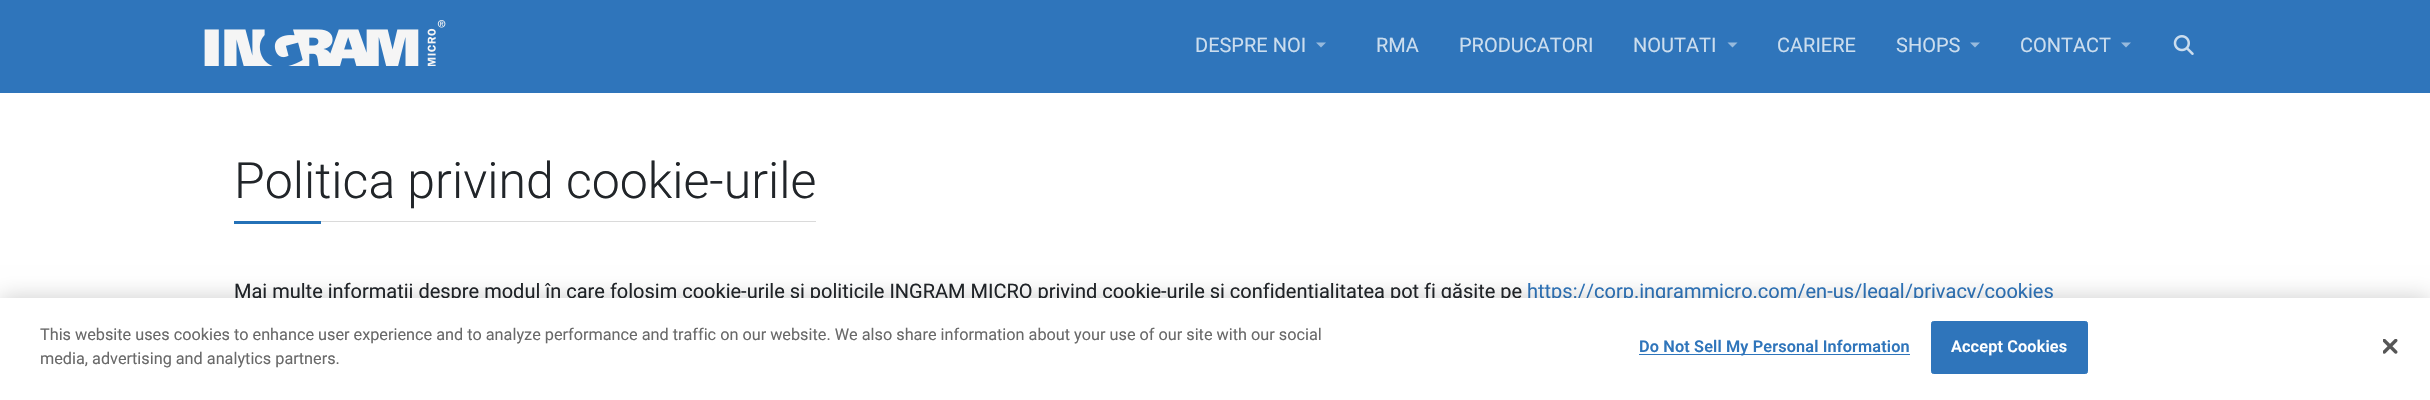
void draw(SkCanvas* canvas) {
    SkPaint paint;
    paint.setAntiAlias(true);
    auto face = [&](const char* family, int weight, float size, bool italic = false) {
        SkFontStyle style(weight, SkFontStyle::kNormal_Width,
            italic ? SkFontStyle::kItalic_Slant : SkFontStyle::kUpright_Slant);
        SkFont result(fontMgr->matchFamilyStyle(family, style), size);
        result.setSubpixel(true);
        return result;
    };
    auto write = [&](const char* s, float x, float y, const SkFont& font, SkColor color) {
        SkPaint ink(SkColor4f::FromColor(color));
        ink.setAntiAlias(true);
        canvas->drawString(s, x, y, font, ink);
    };
    auto writeSpaced = [&](const char* s, float x, float y, const SkFont& font, const SkPaint& ink, float letter, float word) {
        std::vector<SkGlyphID> glyphs(font.countText(s, strlen(s), SkTextEncoding::kUTF8));
        std::vector<float> xs(glyphs.size());
        font.textToGlyphs(s, strlen(s), SkTextEncoding::kUTF8, glyphs);
        font.getXPos(glyphs, xs, x);
        float extra = 0;
        for (size_t i = 0; i < glyphs.size(); i++) {
            xs[i] += extra;
            extra += letter + word * (glyphs[i] == font.unicharToGlyph(' '));
        }
        canvas->drawTextBlob(SkTextBlob::MakeFromPosHGlyphs(glyphs, xs, y, font), 0, 0, ink);
    };
    auto block = [&](float x, float y, float w, float h, SkColor color) {
        SkPaint ink(SkColor4f::FromColor(color));
        ink.setAntiAlias(true);
        canvas->drawRect(SkRect::MakeXYWH(x, y, w, h), ink);
    };
    auto paste = [&](const char* path, float x, float y, float w, float h) {
        auto image = SkImages::DeferredFromEncodedData(SkData::MakeFromFileName(path));
        canvas->drawImageRect(image, SkRect::MakeXYWH(x, y, w, h), SkSamplingOptions());
    };
    canvas->clear(SK_ColorWHITE);
    block(0, 0, 2430, 93, SkColorSetRGB(47, 117, 187));
    paste("pic1.png", 204, 20, 242, 46);
    auto kFont1 = face("Roboto", 400, 20);
    write("DESPRE NOI", 1195, 52, kFont1, SkColorSetRGB(203, 221, 238));
    paint.setColor(SkColorSetRGB(151, 186, 221));
    canvas->drawPath(SkPathBuilder().moveTo(1316, 42.5f).lineTo(1326, 42.5f).lineTo(1321, 47.5f).close().detach(), paint);
    write("RMA", 1376, 52, kFont1, SkColorSetRGB(203, 221, 238));
    write("PRODUCATORI", 1459, 52, kFont1, SkColorSetRGB(203, 221, 238));
    write("NOUTATI", 1633, 52, kFont1, SkColorSetRGB(203, 221, 238));
    canvas->drawPath(SkPathBuilder().moveTo(1727.5f, 42.5f).lineTo(1737.5f, 42.5f).lineTo(1732.5f, 47.5f).close().detach(), paint);
    write("CARIERE", 1777, 52, kFont1, SkColorSetRGB(203, 221, 238));
    write("SHOPS", 1896, 52, kFont1, SkColorSetRGB(203, 221, 238));
    canvas->drawPath(SkPathBuilder().moveTo(1970, 42.5f).lineTo(1980, 42.5f).lineTo(1975, 47.5f).close().detach(), paint);
    write("CONTACT", 2020, 52, kFont1, SkColorSetRGB(203, 221, 238));
    canvas->drawPath(SkPathBuilder().moveTo(2121, 42.5f).lineTo(2131, 42.5f).lineTo(2126, 47.5f).close().detach(), paint);
    paste("pic2.png", 2173, 35, 21, 20);
    block(321, 221, 495, 1, SkColorSetRGB(218, 218, 218));
    auto kFont2 = face("Roboto", 300, 50);
    write("Politica privind cookie-urile", 234, 198, kFont2, SkColorSetRGB(33, 37, 41));
    block(234, 221, 87, 3, SkColorSetRGB(36, 113, 183));
    write("Mai multe informații despre modul în care folosim cookie-urile și politicile INGRAM MICRO privind cookie-urile și confidențialitatea pot fi găsite pe", 234, 298, kFont1, SkColorSetRGB(33, 37, 41));
    write("https://corp.ingrammicro.com/en-us/legal/privacy/cookies", 1527, 298, kFont1, SkColorSetRGB(47, 117, 187));
    paint.setColor(SkColorSetARGB(51, 0, 0, 0));
    paint.setMaskFilter(SkMaskFilter::MakeBlur(kNormal_SkBlurStyle, 11));
    canvas->drawRect(SkRect::MakeXYWH(0, 298, 2430, 102), paint);
    paint.setMaskFilter(nullptr);
    block(0, 298, 2430, 102, SK_ColorWHITE);
    auto kFont3 = face("Roboto", 400, 16.25f);
    write("This website uses cookies to enhance user experience and to analyze performance and traffic on our website. We also share information about your use of our site with our social", 40, 340, kFont3, SkColorSetRGB(105, 105, 105));
    write("media, advertising and analytics partners.", 40, 364, kFont3, SkColorSetRGB(105, 105, 105));
    block(1639, 354, 271, 1, SkColorSetRGB(47, 117, 187));
    auto kFont4 = face("Roboto", 600, 16.25f);
    paint.setColor(SkColorSetRGB(47, 117, 187));
    writeSpaced("Do Not Sell My Personal Information", 1639, 352, kFont4, paint, 0.15f, 0);
    canvas->drawRoundRect(SkRect::MakeXYWH(1931.5f, 321.5f, 156, 52), 2, 2, paint);
    paint.setStyle(SkPaint::kStroke_Style);
    paint.setStrokeWidth(1);
    canvas->drawRoundRect(SkRect::MakeXYWH(1931.5f, 321.5f, 156, 52), 2, 2, paint);
    paint.setStyle(SkPaint::kFill_Style);
    paint.setColor(SK_ColorWHITE);
    writeSpaced("Accept Cookies", 1951, 352, kFont4, paint, 0.15f, 0);
    paste("pic3.png", 2383, 339, 15, 15);
}
